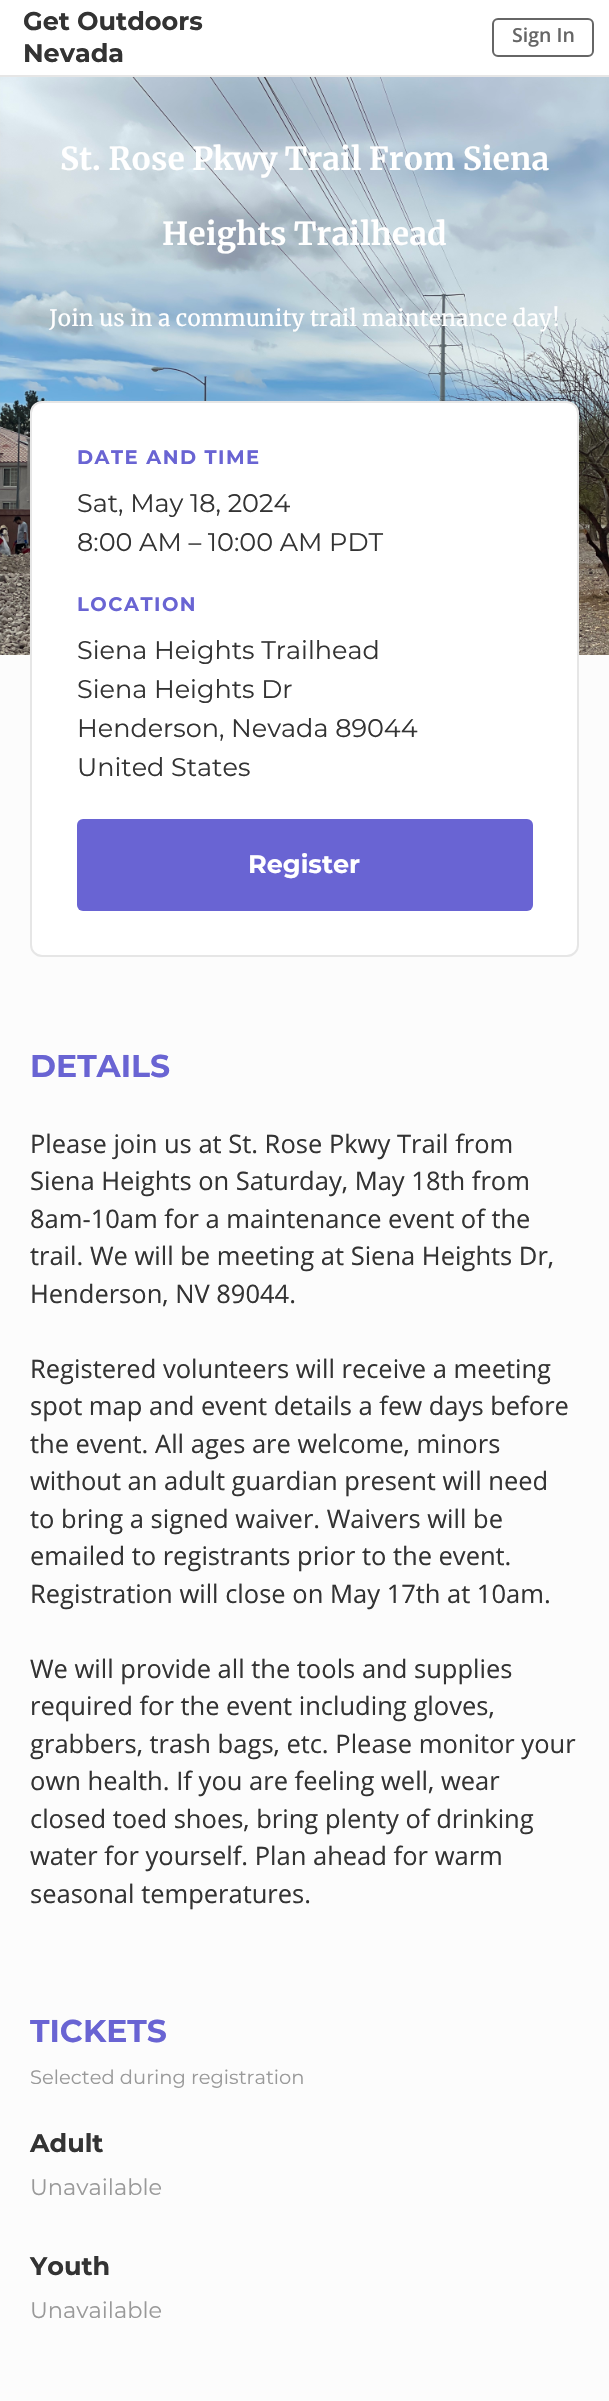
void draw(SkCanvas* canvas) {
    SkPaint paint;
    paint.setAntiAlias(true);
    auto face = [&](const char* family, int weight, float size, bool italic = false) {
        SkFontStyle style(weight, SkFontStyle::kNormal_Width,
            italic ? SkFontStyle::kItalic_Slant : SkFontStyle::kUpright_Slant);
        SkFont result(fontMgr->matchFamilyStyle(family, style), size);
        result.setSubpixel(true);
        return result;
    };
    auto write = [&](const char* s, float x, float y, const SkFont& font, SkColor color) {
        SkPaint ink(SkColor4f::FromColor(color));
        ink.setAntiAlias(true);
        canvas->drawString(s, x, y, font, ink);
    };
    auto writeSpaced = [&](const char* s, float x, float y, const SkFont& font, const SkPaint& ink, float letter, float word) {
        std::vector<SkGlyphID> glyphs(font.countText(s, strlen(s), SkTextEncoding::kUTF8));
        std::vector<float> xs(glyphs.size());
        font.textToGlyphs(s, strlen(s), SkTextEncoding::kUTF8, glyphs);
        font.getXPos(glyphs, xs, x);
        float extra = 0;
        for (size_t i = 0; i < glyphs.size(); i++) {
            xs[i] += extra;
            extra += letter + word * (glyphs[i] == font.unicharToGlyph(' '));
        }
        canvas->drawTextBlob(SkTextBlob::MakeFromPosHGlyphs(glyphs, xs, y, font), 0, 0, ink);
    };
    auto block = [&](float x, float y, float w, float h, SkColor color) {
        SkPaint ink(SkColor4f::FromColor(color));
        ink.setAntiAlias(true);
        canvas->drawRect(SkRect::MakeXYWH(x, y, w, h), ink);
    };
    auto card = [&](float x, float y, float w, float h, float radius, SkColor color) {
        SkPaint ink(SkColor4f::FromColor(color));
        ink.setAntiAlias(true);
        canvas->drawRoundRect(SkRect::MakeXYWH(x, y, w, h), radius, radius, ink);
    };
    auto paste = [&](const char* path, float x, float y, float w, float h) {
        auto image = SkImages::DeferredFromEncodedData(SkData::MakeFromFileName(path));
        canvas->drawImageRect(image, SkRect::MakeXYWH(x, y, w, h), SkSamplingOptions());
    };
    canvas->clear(SkColorSetRGB(252, 252, 252));
    block(0, 0, 609, 75, SK_ColorWHITE);
    block(0, 75, 609, 2, SkColorSetRGB(230, 230, 230));
    auto kFont1 = face("Montserrat", 700, 25.5f);
    write("Get Outdoors", 23, 30, kFont1, SkColorSetRGB(51, 51, 51));
    write("Nevada", 23, 62, kFont1, SkColorSetRGB(51, 51, 51));
    paint.setStyle(SkPaint::kStroke_Style);
    paint.setStrokeWidth(2);
    paint.setColor(SkColorSetRGB(102, 102, 102));
    canvas->drawRoundRect(SkRect::MakeXYWH(493, 19, 100, 37), 5, 5, paint);
    auto kFont2 = face("Open Sans", 600, 19.5f);
    write("Sign In", 512, 42, kFont2, SkColorSetRGB(102, 102, 102));
    paste("pic1.png", 0, 77, 609, 578);
    auto kFont3 = face("Merriweather", 700, 31.5f);
    write("St. Rose Pkwy Trail From Siena", 60, 170, kFont3, SK_ColorWHITE);
    write("Heights Trailhead", 162, 245, kFont3, SK_ColorWHITE);
    auto kFont4 = face("Merriweather", 400, 22.5f);
    write("Join us in a community trail maintenance day!", 49, 326, kFont4, SK_ColorWHITE);
    paint.setStyle(SkPaint::kFill_Style);
    paint.setColor(SK_ColorWHITE);
    canvas->drawRoundRect(SkRect::MakeXYWH(31, 402, 547, 554), 11, 11, paint);
    paint.setStyle(SkPaint::kStroke_Style);
    paint.setColor(SkColorSetRGB(230, 230, 230));
    canvas->drawRoundRect(SkRect::MakeXYWH(31, 402, 547, 554), 11, 11, paint);
    auto kFont5 = face("Montserrat", 700, 19.5f);
    paint.setStyle(SkPaint::kFill_Style);
    paint.setColor(SkColorSetRGB(105, 100, 211));
    writeSpaced("DATE AND TIME", 77, 464, kFont5, paint, 1.5f, 0);
    auto kFont6 = face("Montserrat", 400, 25.5f);
    write("Sat, May 18, 2024", 77, 512, kFont6, SkColorSetRGB(51, 51, 51));
    write("8:00 AM – 10:00 AM PDT", 77, 551, kFont6, SkColorSetRGB(51, 51, 51));
    writeSpaced("LOCATION", 77, 611, kFont5, paint, 1.5f, 0);
    write("Siena Heights Trailhead", 77, 659, kFont6, SkColorSetRGB(51, 51, 51));
    write("Siena Heights Dr", 77, 698, kFont6, SkColorSetRGB(51, 51, 51));
    write("Henderson, Nevada 89044", 77, 737, kFont6, SkColorSetRGB(51, 51, 51));
    write("United States", 77, 776, kFont6, SkColorSetRGB(51, 51, 51));
    card(77, 819, 456, 92, 6, SkColorSetRGB(105, 100, 211));
    write("Register", 248, 873, kFont1, SK_ColorWHITE);
    auto kFont7 = face("Montserrat", 700, 31.5f);
    write("DETAILS", 30, 1077, kFont7, SkColorSetRGB(105, 100, 211));
    auto kFont8 = face("Open Sans", 400, 25.5f);
    write("Please join us at St. Rose Pkwy Trail from", 30, 1153, kFont8, SkColorSetRGB(51, 51, 51));
    write("Siena Heights on Saturday, May 18th from", 30, 1190, kFont8, SkColorSetRGB(51, 51, 51));
    write("8am-10am for a maintenance event of the", 30, 1228, kFont8, SkColorSetRGB(51, 51, 51));
    write("trail. We will be meeting at Siena Heights Dr,", 30, 1265, kFont8, SkColorSetRGB(51, 51, 51));
    write("Henderson, NV 89044.", 30, 1303, kFont8, SkColorSetRGB(51, 51, 51));
    write("Registered volunteers will receive a meeting", 30, 1378, kFont8, SkColorSetRGB(51, 51, 51));
    write("spot map and event details a few days before", 30, 1415, kFont8, SkColorSetRGB(51, 51, 51));
    write("the event. All ages are welcome, minors", 30, 1453, kFont8, SkColorSetRGB(51, 51, 51));
    write("without an adult guardian present will need", 30, 1490, kFont8, SkColorSetRGB(51, 51, 51));
    write("to bring a signed waiver. Waivers will be", 30, 1528, kFont8, SkColorSetRGB(51, 51, 51));
    write("emailed to registrants prior to the event.", 30, 1565, kFont8, SkColorSetRGB(51, 51, 51));
    write("Registration will close on May 17th at 10am.", 30, 1603, kFont8, SkColorSetRGB(51, 51, 51));
    write("We will provide all the tools and supplies", 30, 1678, kFont8, SkColorSetRGB(51, 51, 51));
    write("required for the event including gloves,", 30, 1715, kFont8, SkColorSetRGB(51, 51, 51));
    write("grabbers, trash bags, etc. Please monitor your", 30, 1753, kFont8, SkColorSetRGB(51, 51, 51));
    write("own health. If you are feeling well, wear", 30, 1790, kFont8, SkColorSetRGB(51, 51, 51));
    write("closed toed shoes, bring plenty of drinking", 30, 1828, kFont8, SkColorSetRGB(51, 51, 51));
    write("water for yourself. Plan ahead for warm", 30, 1865, kFont8, SkColorSetRGB(51, 51, 51));
    write("seasonal temperatures.", 30, 1903, kFont8, SkColorSetRGB(51, 51, 51));
    write("TICKETS", 30, 2042, kFont7, SkColorSetRGB(105, 100, 211));
    auto kFont9 = face("Montserrat", 400, 19.5f);
    write("Selected during registration", 30, 2084, kFont9, SkColorSetRGB(153, 153, 153));
    write("Adult", 30, 2152, kFont1, SkColorSetRGB(51, 51, 51));
    auto kFont10 = face("Montserrat", 400, 22.5f);
    write("Unavailable", 30, 2195, kFont10, SkColorSetRGB(153, 153, 153));
    write("Youth", 30, 2275, kFont1, SkColorSetRGB(51, 51, 51));
    write("Unavailable", 30, 2318, kFont10, SkColorSetRGB(153, 153, 153));
}
